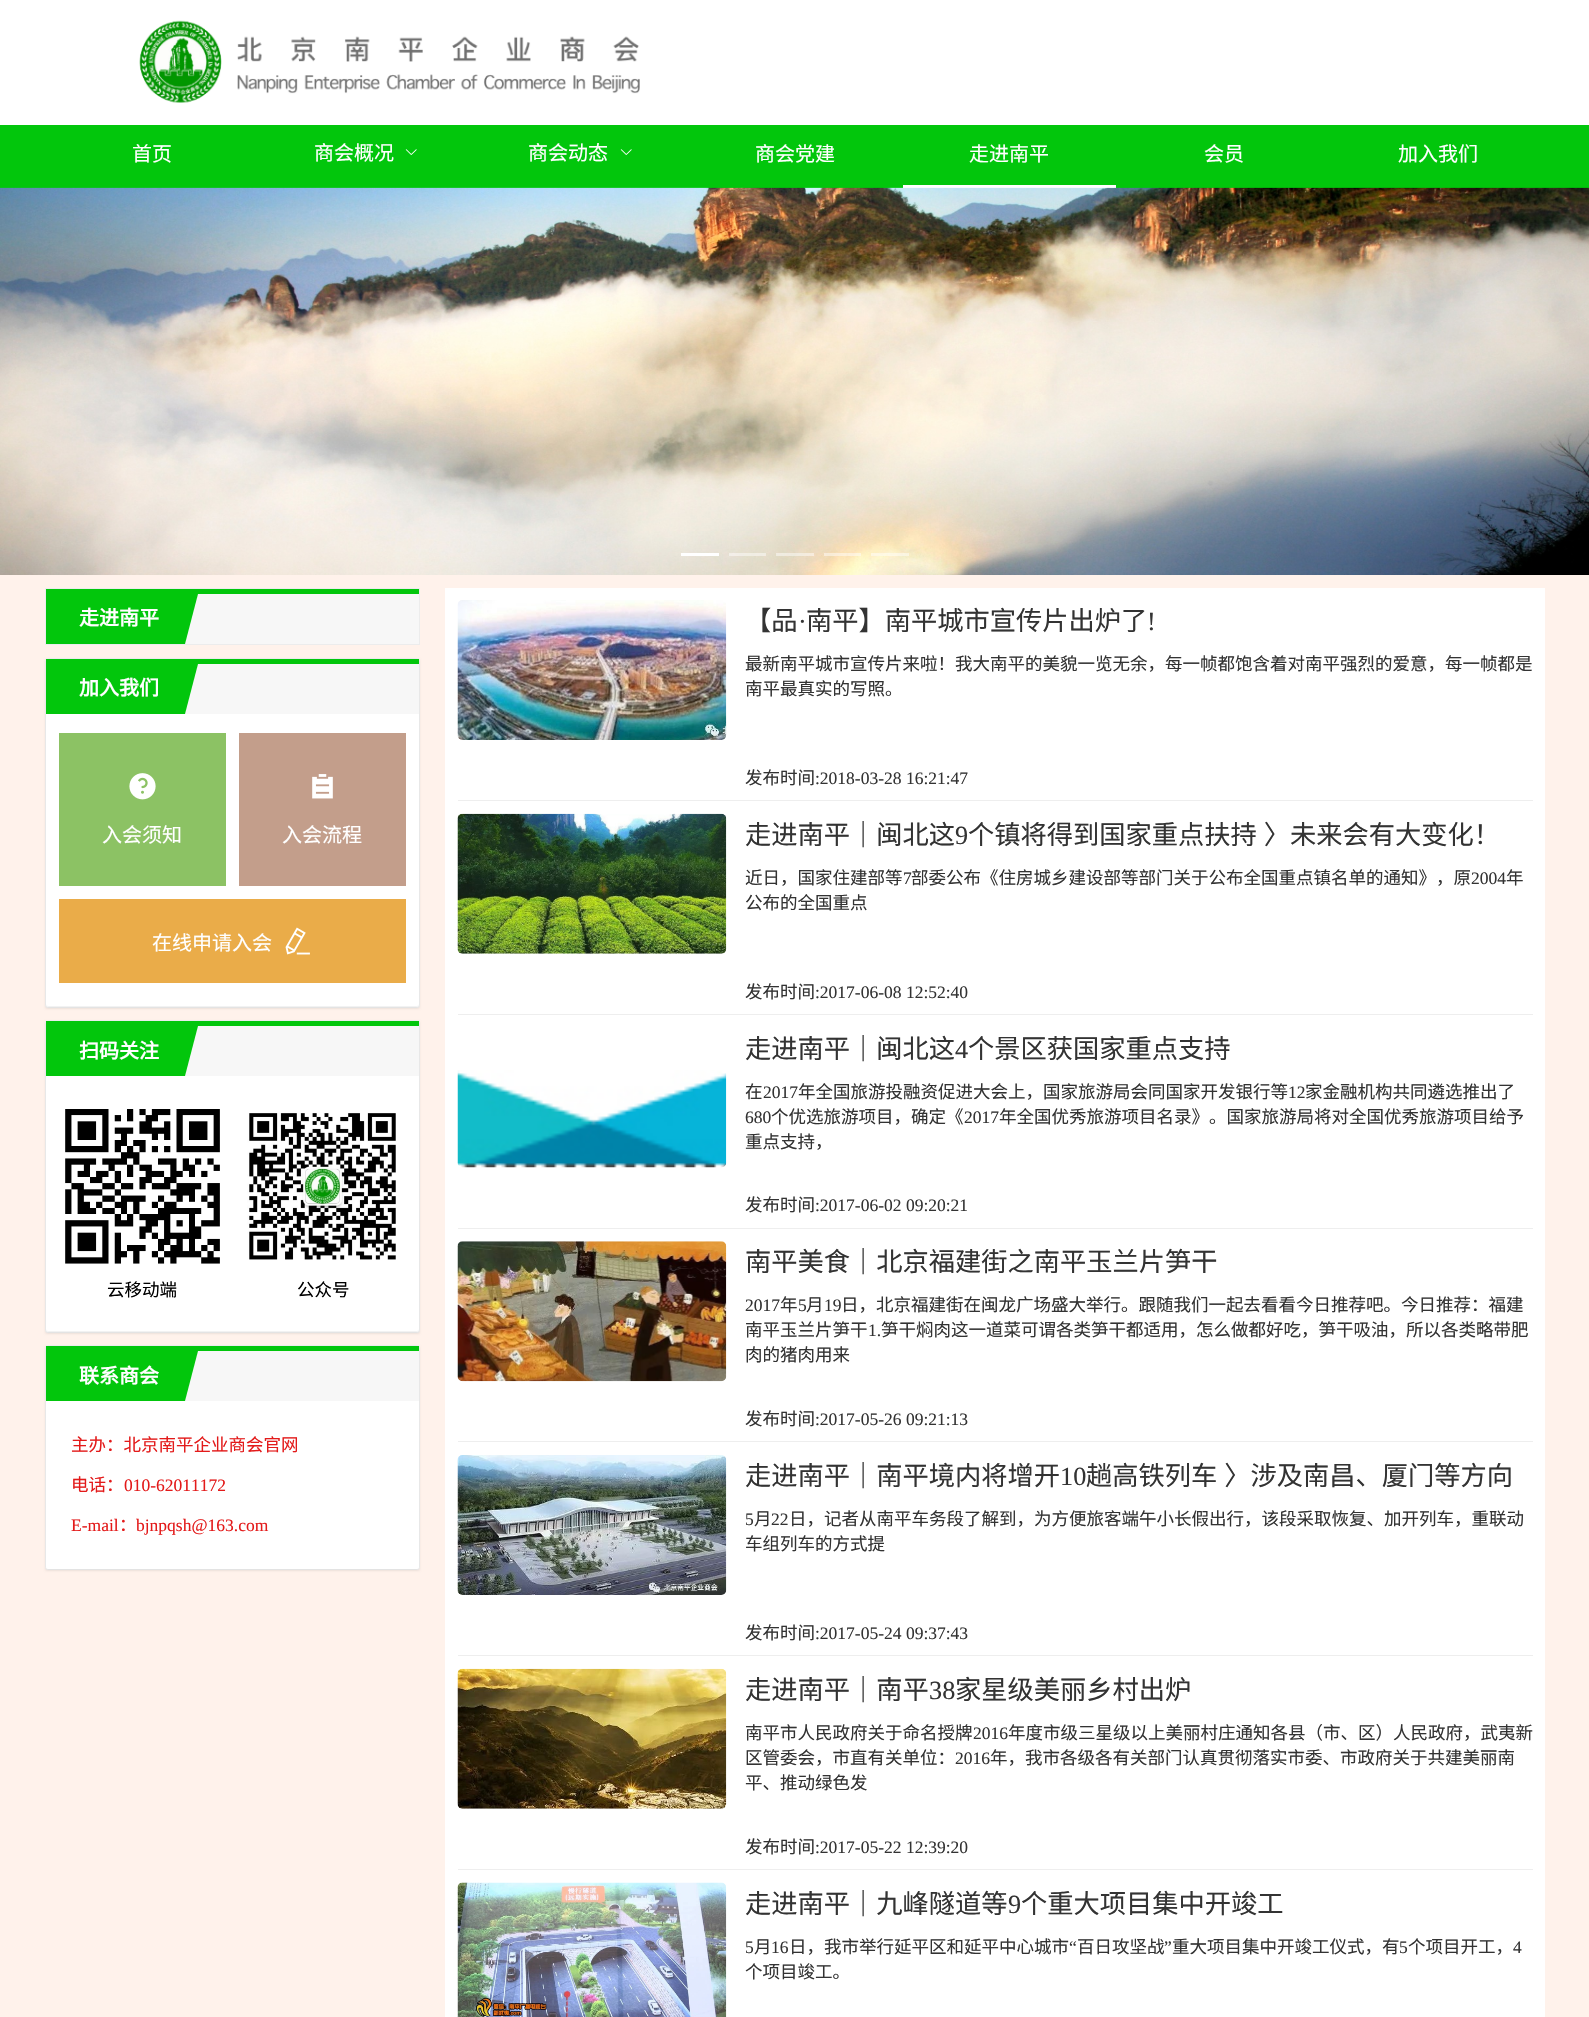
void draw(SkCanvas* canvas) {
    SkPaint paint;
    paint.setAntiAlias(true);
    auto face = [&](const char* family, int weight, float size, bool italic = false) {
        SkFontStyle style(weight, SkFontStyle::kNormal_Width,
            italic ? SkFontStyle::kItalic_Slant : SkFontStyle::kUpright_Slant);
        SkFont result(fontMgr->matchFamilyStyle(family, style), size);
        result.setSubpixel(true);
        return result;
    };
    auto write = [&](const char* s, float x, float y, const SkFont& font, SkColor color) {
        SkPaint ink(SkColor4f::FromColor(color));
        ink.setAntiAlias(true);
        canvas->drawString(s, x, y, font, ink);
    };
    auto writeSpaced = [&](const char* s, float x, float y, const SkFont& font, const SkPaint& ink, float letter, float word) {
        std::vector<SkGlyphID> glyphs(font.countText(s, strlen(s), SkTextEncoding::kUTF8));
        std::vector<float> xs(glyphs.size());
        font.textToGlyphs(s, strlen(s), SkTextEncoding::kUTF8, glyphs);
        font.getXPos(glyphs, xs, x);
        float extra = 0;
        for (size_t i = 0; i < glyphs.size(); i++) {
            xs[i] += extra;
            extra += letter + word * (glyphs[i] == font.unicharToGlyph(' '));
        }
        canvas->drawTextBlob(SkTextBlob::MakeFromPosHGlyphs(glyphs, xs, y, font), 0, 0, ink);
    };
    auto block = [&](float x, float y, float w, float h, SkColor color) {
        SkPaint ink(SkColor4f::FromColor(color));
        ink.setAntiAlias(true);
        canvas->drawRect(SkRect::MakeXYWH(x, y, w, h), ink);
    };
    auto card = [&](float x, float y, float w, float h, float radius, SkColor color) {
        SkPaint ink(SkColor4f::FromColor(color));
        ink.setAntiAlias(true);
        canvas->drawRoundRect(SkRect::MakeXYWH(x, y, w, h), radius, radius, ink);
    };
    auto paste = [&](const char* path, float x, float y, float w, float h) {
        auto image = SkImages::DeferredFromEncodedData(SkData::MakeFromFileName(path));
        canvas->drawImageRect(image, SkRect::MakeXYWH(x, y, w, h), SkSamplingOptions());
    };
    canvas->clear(SK_ColorWHITE);
    paste("pic1.png", 0, 0, 640, 125);
    block(0, 125, 1589, 63, SkColorSetRGB(2, 198, 12));
    auto kFont1 = face("Noto Sans CJK SC", 400, 20);
    write("首页", 132, 161, kFont1, SK_ColorWHITE);
    write("商会概况", 314, 160, kFont1, SK_ColorWHITE);
    paste("pic2.png", 405, 149, 12, 6);
    write("商会动态", 528, 160, kFont1, SK_ColorWHITE);
    paste("pic2.png", 620, 149, 12, 6);
    write("商会党建", 755, 161, kFont1, SK_ColorWHITE);
    block(903, 185, 213, 3, SK_ColorWHITE);
    write("走进南平", 969, 161, kFont1, SK_ColorWHITE);
    write("会员", 1204, 161, kFont1, SK_ColorWHITE);
    write("加入我们", 1398, 161, kFont1, SK_ColorWHITE);
    paste("pic3.png", 0, 187, 1589, 388);
    block(681, 553, 38, 3, SK_ColorWHITE);
    block(729, 553, 37, 3, SkColorSetARGB(122, 255, 255, 255));
    block(776, 553, 38, 3, SkColorSetARGB(122, 255, 255, 255));
    block(824, 553, 37, 3, SkColorSetARGB(122, 255, 255, 255));
    block(871, 553, 38, 3, SkColorSetARGB(122, 255, 255, 255));
    block(0, 575, 1589, 1442, SkColorSetRGB(255, 242, 235));
    paint.setStyle(SkPaint::kStroke_Style);
    paint.setStrokeWidth(1);
    paint.setColor(SkColorSetRGB(236, 236, 236));
    canvas->drawRect(SkRect::MakeXYWH(45.5f, 588.5f, 374, 56), paint);
    block(46, 589, 373, 5, SkColorSetRGB(2, 198, 12));
    block(198, 594, 221, 50, SkColorSetRGB(247, 247, 247));
    block(46, 594, 152, 50, SkColorSetRGB(2, 198, 12));
    auto kFont2 = face("Noto Sans CJK SC", 700, 20);
    write("走进南平", 79, 625, kFont2, SK_ColorWHITE);
    paint.setStyle(SkPaint::kFill_Style);
    paint.setColor(SkColorSetRGB(247, 247, 247));
    canvas->drawPath(SkPathBuilder().moveTo(198, 644).lineTo(185, 644).lineTo(198, 594).close().detach(), paint);
    paint.setColor(SkColorSetARGB(13, 0, 0, 0));
    paint.setMaskFilter(SkMaskFilter::MakeBlur(kNormal_SkBlurStyle, 1));
    canvas->drawRoundRect(SkRect::MakeXYWH(45, 659, 375, 350), 2.5f, 2.5f, paint);
    paint.setMaskFilter(nullptr);
    paint.setColor(SK_ColorWHITE);
    canvas->drawRoundRect(SkRect::MakeXYWH(45.5f, 658.5f, 374, 349), 2, 2, paint);
    paint.setStyle(SkPaint::kStroke_Style);
    paint.setColor(SkColorSetRGB(236, 236, 236));
    canvas->drawRoundRect(SkRect::MakeXYWH(45.5f, 658.5f, 374, 349), 2, 2, paint);
    paint.setStyle(SkPaint::kFill_Style);
    paint.setColor(SkColorSetARGB(13, 0, 0, 0));
    paint.setMaskFilter(SkMaskFilter::MakeBlur(kNormal_SkBlurStyle, 1));
    canvas->drawRoundRect(SkRect::MakeXYWH(46, 660, 373, 348), 2.5f, 2.5f, paint);
    paint.setMaskFilter(nullptr);
    card(46, 659, 373, 347, 2.5f, SK_ColorWHITE);
    block(46, 659, 373, 5, SkColorSetRGB(2, 198, 12));
    block(198, 664, 221, 50, SkColorSetRGB(247, 247, 247));
    block(46, 664, 152, 50, SkColorSetRGB(2, 198, 12));
    write("加入我们", 79, 695, kFont2, SK_ColorWHITE);
    paint.setColor(SkColorSetRGB(247, 247, 247));
    canvas->drawPath(SkPathBuilder().moveTo(198, 714).lineTo(185, 714).lineTo(198, 664).close().detach(), paint);
    block(59, 733, 167, 153, SkColorSetRGB(140, 194, 100));
    paste("pic4.png", 129, 773, 27, 27);
    write("入会须知", 102, 842, kFont1, SK_ColorWHITE);
    block(239, 733, 167, 153, SkColorSetRGB(195, 158, 139));
    paste("pic5.png", 312, 774, 21, 25);
    write("入会流程", 282, 842, kFont1, SK_ColorWHITE);
    block(59, 899, 347, 84, SkColorSetRGB(234, 172, 73));
    write("在线申请入会", 152, 950, kFont1, SK_ColorWHITE);
    paste("pic6.png", 285, 927, 25, 28);
    paint.setColor(SkColorSetARGB(13, 0, 0, 0));
    paint.setMaskFilter(SkMaskFilter::MakeBlur(kNormal_SkBlurStyle, 1));
    canvas->drawRoundRect(SkRect::MakeXYWH(45, 1021, 375, 313), 2.5f, 2.5f, paint);
    paint.setMaskFilter(nullptr);
    paint.setColor(SK_ColorWHITE);
    canvas->drawRoundRect(SkRect::MakeXYWH(45.5f, 1020.5f, 374, 312), 2, 2, paint);
    paint.setStyle(SkPaint::kStroke_Style);
    paint.setColor(SkColorSetRGB(236, 236, 236));
    canvas->drawRoundRect(SkRect::MakeXYWH(45.5f, 1020.5f, 374, 312), 2, 2, paint);
    paint.setStyle(SkPaint::kFill_Style);
    paint.setColor(SkColorSetARGB(13, 0, 0, 0));
    paint.setMaskFilter(SkMaskFilter::MakeBlur(kNormal_SkBlurStyle, 1));
    canvas->drawRoundRect(SkRect::MakeXYWH(46, 1023, 373, 310), 2.5f, 2.5f, paint);
    paint.setMaskFilter(nullptr);
    card(46, 1021, 373, 310, 2.5f, SK_ColorWHITE);
    block(46, 1021, 373, 5, SkColorSetRGB(2, 198, 12));
    block(198, 1026, 221, 50, SkColorSetRGB(247, 247, 247));
    block(46, 1026, 152, 50, SkColorSetRGB(2, 198, 12));
    write("扫码关注", 79, 1058, kFont2, SK_ColorWHITE);
    paint.setColor(SkColorSetRGB(247, 247, 247));
    canvas->drawPath(SkPathBuilder().moveTo(198, 1076).lineTo(185, 1076).lineTo(198, 1026).close().detach(), paint);
    paste("pic7.png", 65, 1109, 155, 155);
    auto kFont3 = face("Noto Sans CJK SC", 400, 17.5f);
    write("云移动端", 107, 1296, kFont3, SK_ColorBLACK);
    paste("pic8.png", 247, 1113, 149, 147);
    write("公众号", 297, 1296, kFont3, SK_ColorBLACK);
    paint.setColor(SkColorSetARGB(13, 0, 0, 0));
    paint.setMaskFilter(SkMaskFilter::MakeBlur(kNormal_SkBlurStyle, 1));
    canvas->drawRoundRect(SkRect::MakeXYWH(45, 1346, 375, 225), 2.5f, 2.5f, paint);
    paint.setMaskFilter(nullptr);
    paint.setColor(SK_ColorWHITE);
    canvas->drawRoundRect(SkRect::MakeXYWH(45.5f, 1345.5f, 374, 224), 2, 2, paint);
    paint.setStyle(SkPaint::kStroke_Style);
    paint.setColor(SkColorSetRGB(236, 236, 236));
    canvas->drawRoundRect(SkRect::MakeXYWH(45.5f, 1345.5f, 374, 224), 2, 2, paint);
    paint.setStyle(SkPaint::kFill_Style);
    paint.setColor(SkColorSetARGB(13, 0, 0, 0));
    paint.setMaskFilter(SkMaskFilter::MakeBlur(kNormal_SkBlurStyle, 1));
    canvas->drawRoundRect(SkRect::MakeXYWH(46, 1348, 373, 222), 2.5f, 2.5f, paint);
    paint.setMaskFilter(nullptr);
    card(46, 1346, 373, 223, 2.5f, SK_ColorWHITE);
    block(46, 1346, 373, 5, SkColorSetRGB(2, 198, 12));
    block(198, 1351, 221, 50, SkColorSetRGB(247, 247, 247));
    block(46, 1351, 152, 50, SkColorSetRGB(2, 198, 12));
    write("联系商会", 79, 1383, kFont2, SK_ColorWHITE);
    paint.setColor(SkColorSetRGB(247, 247, 247));
    canvas->drawPath(SkPathBuilder().moveTo(198, 1401).lineTo(185, 1401).lineTo(198, 1351).close().detach(), paint);
    write("主办：北京南平企业商会官网", 71, 1451, kFont3, SkColorSetRGB(227, 26, 26));
    write("电话：", 71, 1491, kFont3, SkColorSetRGB(227, 26, 26));
    auto kFont4 = face("Liberation Serif", 400, 17.5f);
    write("010-62011172", 124, 1491, kFont4, SkColorSetRGB(227, 26, 26));
    write("E-mail", 71, 1531, kFont4, SkColorSetRGB(227, 26, 26));
    write("：", 119, 1531, kFont3, SkColorSetRGB(227, 26, 26));
    write("bjnpqsh@163.com", 136, 1531, kFont4, SkColorSetRGB(227, 26, 26));
    block(445, 588, 1100, 1429, SK_ColorWHITE);
    block(458, 800, 1075, 1, SkColorSetRGB(238, 238, 238));
    paste("pic9.png", 457, 600, 270, 140);
    auto kFont5 = face("Noto Sans CJK SC", 400, 26.25f);
    write("【品", 745, 630, kFont5, SkColorSetRGB(51, 51, 51));
    auto kFont6 = face("Liberation Serif", 400, 26.25f);
    write("·", 798, 630, kFont6, SkColorSetRGB(51, 51, 51));
    write("南平】南平城市宣传片出炉了", 806, 630, kFont5, SkColorSetRGB(51, 51, 51));
    write("!", 1147, 630, kFont6, SkColorSetRGB(51, 51, 51));
    write("最新南平城市宣传片来啦！我大南平的美貌一览无余，每一帧都饱含着对南平强烈的爱意，每一帧都是", 745, 670, kFont3, SkColorSetRGB(51, 51, 51));
    write("南平最真实的写照。", 745, 695, kFont3, SkColorSetRGB(51, 51, 51));
    write("发布时间", 745, 784, kFont3, SkColorSetRGB(51, 51, 51));
    write(":2018-03-28 16:21:47", 815, 784, kFont4, SkColorSetRGB(51, 51, 51));
    block(458, 1014, 1075, 1, SkColorSetRGB(238, 238, 238));
    paste("pic10.png", 457, 813, 270, 141);
    write("走进南平｜闽北这", 745, 844, kFont5, SkColorSetRGB(51, 51, 51));
    write("9", 955, 844, kFont6, SkColorSetRGB(51, 51, 51));
    paint.setColor(SkColorSetRGB(51, 51, 51));
    writeSpaced("个镇将得到国家重点扶持 〉未来会有大变化！", 968, 844, kFont5, paint, 0, 1);
    write("近日，国家住建部等", 745, 884, kFont3, SkColorSetRGB(51, 51, 51));
    write("7", 903, 884, kFont4, SkColorSetRGB(51, 51, 51));
    write("部委公布《住房城乡建设部等部门关于公布全国重点镇名单的通知》，原", 911, 884, kFont3, SkColorSetRGB(51, 51, 51));
    write("2004", 1471, 884, kFont4, SkColorSetRGB(51, 51, 51));
    write("年", 1506, 884, kFont3, SkColorSetRGB(51, 51, 51));
    write("公布的全国重点", 745, 909, kFont3, SkColorSetRGB(51, 51, 51));
    write("发布时间", 745, 998, kFont3, SkColorSetRGB(51, 51, 51));
    write(":2017-06-08 12:52:40", 815, 998, kFont4, SkColorSetRGB(51, 51, 51));
    block(458, 1228, 1075, 1, SkColorSetRGB(238, 238, 238));
    paste("pic11.png", 457, 1070, 270, 98);
    write("走进南平｜闽北这", 745, 1058, kFont5, SkColorSetRGB(51, 51, 51));
    write("4", 955, 1058, kFont6, SkColorSetRGB(51, 51, 51));
    write("个景区获国家重点支持", 968, 1058, kFont5, SkColorSetRGB(51, 51, 51));
    write("在", 745, 1098, kFont3, SkColorSetRGB(51, 51, 51));
    write("2017", 763, 1098, kFont4, SkColorSetRGB(51, 51, 51));
    write("年全国旅游投融资促进大会上，国家旅游局会同国家开发银行等", 798, 1098, kFont3, SkColorSetRGB(51, 51, 51));
    write("12", 1288, 1098, kFont4, SkColorSetRGB(51, 51, 51));
    write("家金融机构共同遴选推出了", 1305, 1098, kFont3, SkColorSetRGB(51, 51, 51));
    write("680", 745, 1123, kFont4, SkColorSetRGB(51, 51, 51));
    write("个优选旅游项目，确定《", 771, 1123, kFont3, SkColorSetRGB(51, 51, 51));
    write("2017", 964, 1123, kFont4, SkColorSetRGB(51, 51, 51));
    write("年全国优秀旅游项目名录》。国家旅游局将对全国优秀旅游项目给予", 999, 1123, kFont3, SkColorSetRGB(51, 51, 51));
    write("重点支持，", 745, 1148, kFont3, SkColorSetRGB(51, 51, 51));
    write("发布时间", 745, 1211, kFont3, SkColorSetRGB(51, 51, 51));
    write(":2017-06-02 09:20:21", 815, 1211, kFont4, SkColorSetRGB(51, 51, 51));
    block(458, 1441, 1075, 1, SkColorSetRGB(238, 238, 238));
    paste("pic12.png", 457, 1241, 270, 141);
    write("南平美食｜北京福建街之南平玉兰片笋干", 745, 1271, kFont5, SkColorSetRGB(51, 51, 51));
    write("2017", 745, 1311, kFont4, SkColorSetRGB(51, 51, 51));
    write("年", 780, 1311, kFont3, SkColorSetRGB(51, 51, 51));
    write("5", 798, 1311, kFont4, SkColorSetRGB(51, 51, 51));
    write("月", 806, 1311, kFont3, SkColorSetRGB(51, 51, 51));
    write("19", 824, 1311, kFont4, SkColorSetRGB(51, 51, 51));
    write("日，北京福建街在闽龙广场盛大举行。跟随我们一起去看看今日推荐吧。今日推荐：福建", 841, 1311, kFont3, SkColorSetRGB(51, 51, 51));
    write("南平玉兰片笋干", 745, 1336, kFont3, SkColorSetRGB(51, 51, 51));
    write("1.", 868, 1336, kFont4, SkColorSetRGB(51, 51, 51));
    write("笋干焖肉这一道菜可谓各类笋干都适用，怎么做都好吃，笋干吸油，所以各类略带肥", 881, 1336, kFont3, SkColorSetRGB(51, 51, 51));
    write("肉的猪肉用来", 745, 1361, kFont3, SkColorSetRGB(51, 51, 51));
    write("发布时间", 745, 1425, kFont3, SkColorSetRGB(51, 51, 51));
    write(":2017-05-26 09:21:13", 815, 1425, kFont4, SkColorSetRGB(51, 51, 51));
    block(458, 1655, 1075, 1, SkColorSetRGB(238, 238, 238));
    paste("pic13.png", 457, 1455, 270, 140);
    write("走进南平｜南平境内将增开", 745, 1485, kFont5, SkColorSetRGB(51, 51, 51));
    write("10", 1060, 1485, kFont6, SkColorSetRGB(51, 51, 51));
    writeSpaced("趟高铁列车 〉涉及南昌、厦门等方向", 1086, 1485, kFont5, paint, 0, 1);
    write("5", 745, 1525, kFont4, SkColorSetRGB(51, 51, 51));
    write("月", 754, 1525, kFont3, SkColorSetRGB(51, 51, 51));
    write("22", 771, 1525, kFont4, SkColorSetRGB(51, 51, 51));
    write("日，记者从南平车务段了解到，为方便旅客端午小长假出行，该段采取恢复、加开列车，重联动", 789, 1525, kFont3, SkColorSetRGB(51, 51, 51));
    write("车组列车的方式提", 745, 1550, kFont3, SkColorSetRGB(51, 51, 51));
    write("发布时间", 745, 1639, kFont3, SkColorSetRGB(51, 51, 51));
    write(":2017-05-24 09:37:43", 815, 1639, kFont4, SkColorSetRGB(51, 51, 51));
    block(458, 1869, 1075, 1, SkColorSetRGB(238, 238, 238));
    paste("pic14.png", 457, 1668, 270, 141);
    write("走进南平｜南平", 745, 1699, kFont5, SkColorSetRGB(51, 51, 51));
    write("38", 929, 1699, kFont6, SkColorSetRGB(51, 51, 51));
    write("家星级美丽乡村出炉", 955, 1699, kFont5, SkColorSetRGB(51, 51, 51));
    write("南平市人民政府关于命名授牌", 745, 1739, kFont3, SkColorSetRGB(51, 51, 51));
    write("2016", 973, 1739, kFont4, SkColorSetRGB(51, 51, 51));
    write("年度市级三星级以上美丽村庄通知各县（市、区）人民政府，武夷新", 1008, 1739, kFont3, SkColorSetRGB(51, 51, 51));
    write("区管委会，市直有关单位：", 745, 1764, kFont3, SkColorSetRGB(51, 51, 51));
    write("2016", 955, 1764, kFont4, SkColorSetRGB(51, 51, 51));
    write("年，我市各级各有关部门认真贯彻落实市委、市政府关于共建美丽南", 990, 1764, kFont3, SkColorSetRGB(51, 51, 51));
    write("平、推动绿色发", 745, 1789, kFont3, SkColorSetRGB(51, 51, 51));
    write("发布时间", 745, 1853, kFont3, SkColorSetRGB(51, 51, 51));
    write(":2017-05-22 12:39:20", 815, 1853, kFont4, SkColorSetRGB(51, 51, 51));
    paste("pic15.png", 457, 1882, 270, 135);
    write("走进南平｜九峰隧道等", 745, 1913, kFont5, SkColorSetRGB(51, 51, 51));
    write("9", 1008, 1913, kFont6, SkColorSetRGB(51, 51, 51));
    write("个重大项目集中开竣工", 1021, 1913, kFont5, SkColorSetRGB(51, 51, 51));
    write("5", 745, 1953, kFont4, SkColorSetRGB(51, 51, 51));
    write("月", 754, 1953, kFont3, SkColorSetRGB(51, 51, 51));
    write("16", 771, 1953, kFont4, SkColorSetRGB(51, 51, 51));
    write("日，我市举行延平区和延平中心城市", 789, 1953, kFont3, SkColorSetRGB(51, 51, 51));
    write("“", 1069, 1953, kFont4, SkColorSetRGB(51, 51, 51));
    write("百日攻坚战", 1077, 1953, kFont3, SkColorSetRGB(51, 51, 51));
    write("”", 1164, 1953, kFont4, SkColorSetRGB(51, 51, 51));
    write("重大项目集中开竣工仪式，有", 1172, 1953, kFont3, SkColorSetRGB(51, 51, 51));
    write("5", 1399, 1953, kFont4, SkColorSetRGB(51, 51, 51));
    write("个项目开工，", 1408, 1953, kFont3, SkColorSetRGB(51, 51, 51));
    write("4", 1513, 1953, kFont4, SkColorSetRGB(51, 51, 51));
    write("个项目竣工。", 745, 1978, kFont3, SkColorSetRGB(51, 51, 51));
}
